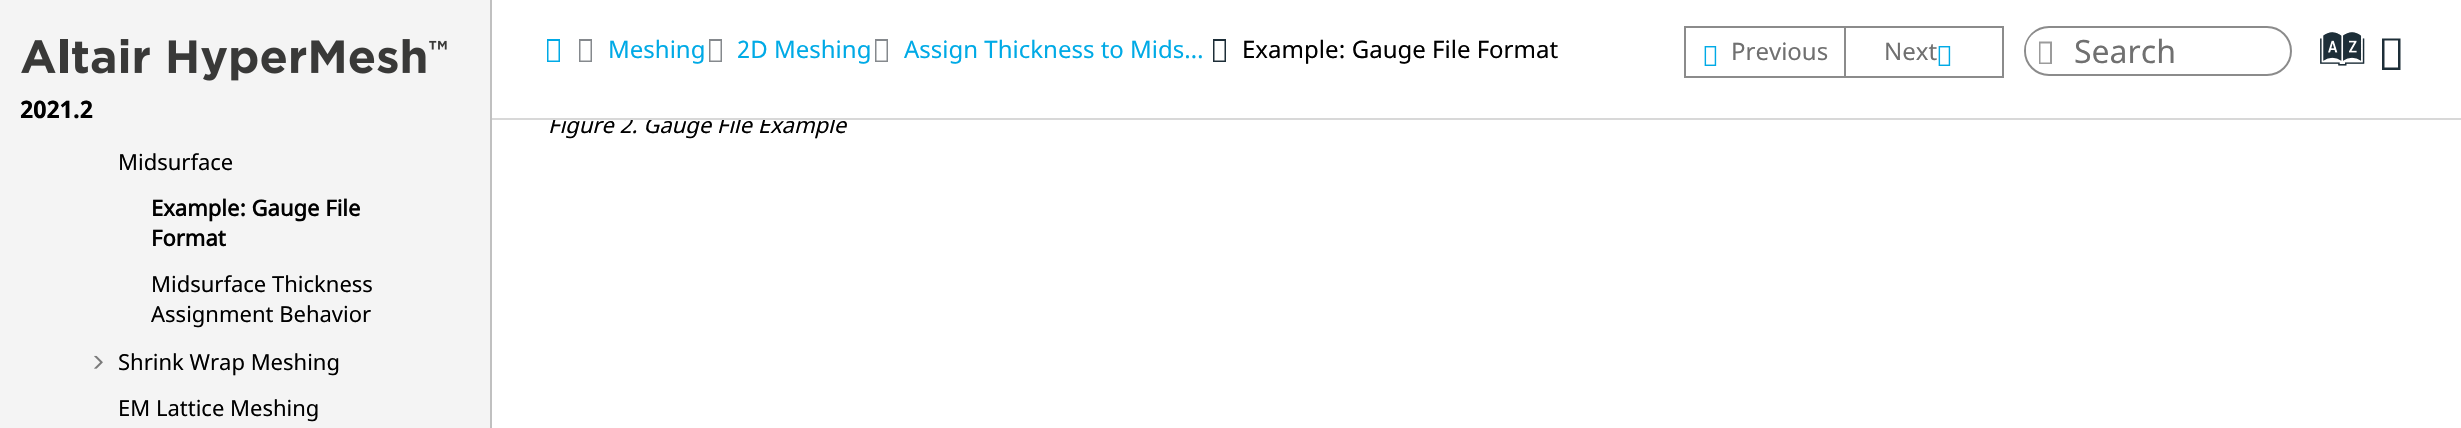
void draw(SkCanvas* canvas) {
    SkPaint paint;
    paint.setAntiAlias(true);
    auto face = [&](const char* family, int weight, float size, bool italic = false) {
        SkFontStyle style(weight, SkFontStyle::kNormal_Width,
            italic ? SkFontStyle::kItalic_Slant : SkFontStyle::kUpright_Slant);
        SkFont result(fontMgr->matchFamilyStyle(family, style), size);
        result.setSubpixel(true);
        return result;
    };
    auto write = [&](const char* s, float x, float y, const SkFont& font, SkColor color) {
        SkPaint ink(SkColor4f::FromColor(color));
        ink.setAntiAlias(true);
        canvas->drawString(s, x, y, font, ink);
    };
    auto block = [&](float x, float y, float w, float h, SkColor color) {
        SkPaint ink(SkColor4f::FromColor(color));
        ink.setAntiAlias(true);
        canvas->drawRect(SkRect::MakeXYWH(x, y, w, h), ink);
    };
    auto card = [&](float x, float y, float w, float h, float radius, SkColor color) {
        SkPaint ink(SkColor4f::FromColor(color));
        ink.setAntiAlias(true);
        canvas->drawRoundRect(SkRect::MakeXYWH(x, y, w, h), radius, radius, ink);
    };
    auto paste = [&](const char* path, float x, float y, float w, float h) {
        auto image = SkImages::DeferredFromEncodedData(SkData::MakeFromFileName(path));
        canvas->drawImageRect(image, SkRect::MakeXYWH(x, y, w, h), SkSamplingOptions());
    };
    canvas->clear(SK_ColorWHITE);
    auto kFont1 = face("Noto Sans", 400, 22, true);
    write("Figure 2. Gauge File Example", 548, 133, kFont1, SK_ColorBLACK);
    block(553, 116, 283, 2, SK_ColorWHITE);
    block(492, 118, 1969, 2, SkColorSetRGB(216, 216, 216));
    paint.setColor(SkColorSetRGB(0, 170, 230));
    canvas->drawPath(SkPathBuilder().moveTo(547, 62).lineTo(547, 39).lineTo(560, 39).lineTo(560, 62).close().moveTo(548.5f, 60.5f).lineTo(558.5f, 60.5f).lineTo(558.5f, 41).lineTo(548.5f, 41).close().detach(), paint);
    paint.setColor(SkColorSetRGB(133, 137, 141));
    canvas->drawPath(SkPathBuilder().moveTo(579, 62).lineTo(579, 39).lineTo(592, 39).lineTo(592, 62).close().moveTo(580.5f, 60.5f).lineTo(590.5f, 60.5f).lineTo(590.5f, 41).lineTo(580.5f, 41).close().detach(), paint);
    auto kFont2 = face("Noto Sans", 400, 24);
    write("Meshing", 608, 58, kFont2, SkColorSetRGB(0, 170, 230));
    canvas->drawPath(SkPathBuilder().moveTo(709, 62).lineTo(709, 39).lineTo(722, 39).lineTo(722, 62).close().moveTo(710.5f, 60.5f).lineTo(720.5f, 60.5f).lineTo(720.5f, 41).lineTo(710.5f, 41).close().detach(), paint);
    write("2D Meshing", 737, 58, kFont2, SkColorSetRGB(0, 170, 230));
    canvas->drawPath(SkPathBuilder().moveTo(875, 62).lineTo(875, 39).lineTo(888, 39).lineTo(888, 62).close().moveTo(876.5f, 60.5f).lineTo(886.5f, 60.5f).lineTo(886.5f, 41).lineTo(876.5f, 41).close().detach(), paint);
    write("Assign Thickness to Mids…", 904, 58, kFont2, SkColorSetRGB(0, 170, 230));
    paint.setColor(SkColorSetRGB(29, 46, 56));
    canvas->drawPath(SkPathBuilder().moveTo(1213, 62).lineTo(1213, 39).lineTo(1226, 39).lineTo(1226, 62).close().moveTo(1214.5f, 60.5f).lineTo(1224.5f, 60.5f).lineTo(1224.5f, 41).lineTo(1214.5f, 41).close().detach(), paint);
    write("Example: Gauge File Format", 1242, 58, kFont2, SK_ColorBLACK);
    block(1684, 26, 160, 2, SkColorSetRGB(139, 139, 139));
    block(1684, 76, 160, 2, SkColorSetRGB(139, 139, 139));
    block(1684, 26, 2, 52, SkColorSetRGB(139, 139, 139));
    paste("pic1.png", 1704, 46, 13, 20);
    write("Previous", 1731, 60, kFont2, SkColorSetRGB(112, 112, 112));
    paint.setStyle(SkPaint::kStroke_Style);
    paint.setStrokeWidth(2);
    paint.setColor(SkColorSetRGB(139, 139, 139));
    canvas->drawRect(SkRect::MakeXYWH(1845, 27, 158, 50), paint);
    write("Next", 1884, 60, kFont2, SkColorSetRGB(112, 112, 112));
    paste("pic1.png", 1938, 46, 13, 20);
    canvas->drawRoundRect(SkRect::MakeXYWH(2025, 27, 266, 48), 24, 24, paint);
    card(2026, 30, 40, 38, 19, SK_ColorWHITE);
    paint.setStyle(SkPaint::kFill_Style);
    paint.setColor(SkColorSetRGB(155, 155, 155));
    canvas->drawPath(SkPathBuilder().moveTo(2039, 64).lineTo(2039, 41.5f).lineTo(2052, 41.5f).lineTo(2052, 64).close().moveTo(2040.5f, 62.5f).lineTo(2050, 62.5f).lineTo(2050, 43.5f).lineTo(2040.5f, 43.5f).close().detach(), paint);
    auto kFont3 = face("Noto Sans", 400, 32);
    write("Search", 2074, 63, kFont3, SkColorSetRGB(112, 112, 112));
    auto kFont4 = face("Oxygen", 400, 47);
    write("a", 2325, 71, kFont4, SkColorSetRGB(29, 46, 56));
    paint.setColor(SkColorSetRGB(29, 46, 56));
    canvas->drawPath(SkPathBuilder().moveTo(2382, 70).lineTo(2382, 38.5f).lineTo(2400.5f, 38.5f).lineTo(2400.5f, 70).close().moveTo(2384.5f, 67.5f).lineTo(2398, 67.5f).lineTo(2398, 40.5f).lineTo(2384.5f, 40.5f).close().detach(), paint);
    block(0, 0, 490, 428, SkColorSetRGB(244, 244, 244));
    block(490, 0, 2, 428, SkColorSetRGB(192, 192, 192));
    paste("pic2.png", 21, 39, 426, 42);
    auto kFont5 = face("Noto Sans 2", 700, 24);
    write("2021.2", 20, 118, kFont5, SK_ColorBLACK);
    auto kFont6 = face("Noto Sans", 400, 22);
    write("Midsurface", 118, 170, kFont6, SK_ColorBLACK);
    auto kFont7 = face("Noto Sans", 700, 22);
    write("Example: Gauge File", 151, 216, kFont7, SK_ColorBLACK);
    write("Format", 151, 246, kFont7, SK_ColorBLACK);
    write("Midsurface Thickness", 151, 292, kFont6, SK_ColorBLACK);
    write("Assignment Behavior", 151, 322, kFont6, SK_ColorBLACK);
    paste("pic3.png", 94, 355, 9, 14);
    write("Shrink Wrap Meshing", 118, 370, kFont6, SK_ColorBLACK);
    write("EM Lattice Meshing", 118, 416, kFont6, SK_ColorBLACK);
}
